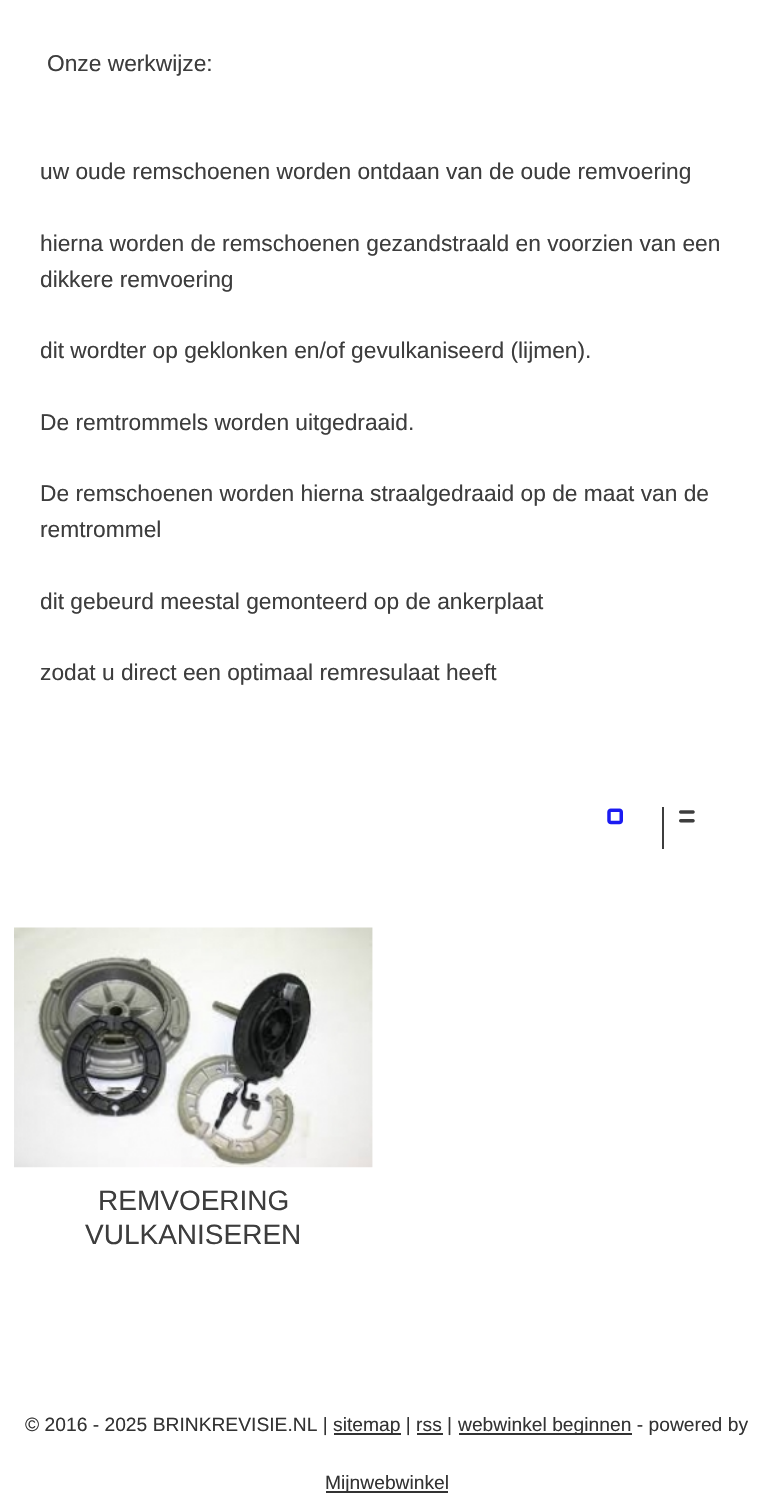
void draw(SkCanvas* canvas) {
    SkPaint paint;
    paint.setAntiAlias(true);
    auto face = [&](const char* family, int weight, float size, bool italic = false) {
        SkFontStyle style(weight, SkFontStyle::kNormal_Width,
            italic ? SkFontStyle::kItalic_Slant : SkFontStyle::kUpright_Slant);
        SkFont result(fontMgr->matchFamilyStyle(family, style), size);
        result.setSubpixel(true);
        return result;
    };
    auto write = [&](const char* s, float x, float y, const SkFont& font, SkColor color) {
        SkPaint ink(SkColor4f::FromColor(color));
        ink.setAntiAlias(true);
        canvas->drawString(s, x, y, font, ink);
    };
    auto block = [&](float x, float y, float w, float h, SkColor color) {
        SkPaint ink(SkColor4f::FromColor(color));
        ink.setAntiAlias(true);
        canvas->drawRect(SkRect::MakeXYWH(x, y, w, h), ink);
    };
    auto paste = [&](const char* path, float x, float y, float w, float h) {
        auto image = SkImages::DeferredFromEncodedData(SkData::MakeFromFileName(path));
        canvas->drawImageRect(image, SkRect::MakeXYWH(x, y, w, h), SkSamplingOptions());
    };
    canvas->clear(SK_ColorWHITE);
    auto kFont1 = face("Liberation Sans", 400, 22.75f);
    write("Onze werkwijze:", 47, 71, kFont1, SkColorSetRGB(61, 61, 61));
    write("uw oude remschoenen worden ontdaan van de oude remvoering", 40, 179, kFont1, SkColorSetRGB(61, 61, 61));
    write("hierna worden de remschoenen gezandstraald en voorzien van een", 40, 251, kFont1, SkColorSetRGB(61, 61, 61));
    write("dikkere remvoering", 40, 287, kFont1, SkColorSetRGB(61, 61, 61));
    write("dit wordter op geklonken en/of gevulkaniseerd (lijmen).", 40, 358, kFont1, SkColorSetRGB(61, 61, 61));
    write("De remtrommels worden uitgedraaid.", 40, 430, kFont1, SkColorSetRGB(61, 61, 61));
    write("De remschoenen worden hierna straalgedraaid op de maat van de", 40, 501, kFont1, SkColorSetRGB(61, 61, 61));
    write("remtrommel", 40, 537, kFont1, SkColorSetRGB(61, 61, 61));
    write("dit gebeurd meestal gemonteerd op de ankerplaat", 40, 609, kFont1, SkColorSetRGB(61, 61, 61));
    write("zodat u direct een optimaal remresulaat heeft", 40, 680, kFont1, SkColorSetRGB(61, 61, 61));
    paste("pic1.png", 607, 808, 16, 17);
    block(662, 807, 2, 42, SkColorSetRGB(61, 61, 61));
    paste("pic2.png", 679, 810, 16, 13);
    paste("pic3.png", 14, 927, 359, 241);
    auto kFont2 = face("Liberation Sans", 400, 28);
    write("REMVOERING", 98, 1210, kFont2, SkColorSetRGB(61, 61, 61));
    write("VULKANISEREN", 85, 1244, kFont2, SkColorSetRGB(61, 61, 61));
    auto kFont3 = face("Liberation Sans", 400, 19.25f);
    write("© 2016 - 2025 BRINKREVISIE.NL |", 25, 1431, kFont3, SkColorSetRGB(51, 51, 51));
    block(334, 1433, 67, 2, SkColorSetRGB(51, 51, 51));
    write("sitemap | rss |", 333, 1431, kFont3, SkColorSetRGB(51, 51, 51));
    block(459, 1433, 173, 2, SkColorSetRGB(51, 51, 51));
    write("webwinkel beginnen - powered by", 458, 1431, kFont3, SkColorSetRGB(51, 51, 51));
    block(417, 1433, 26, 2, SkColorSetRGB(51, 51, 51));
    block(326, 1491, 122, 2, SkColorSetRGB(51, 51, 51));
    write("Mijnwebwinkel", 325, 1489, kFont3, SkColorSetRGB(51, 51, 51));
}
